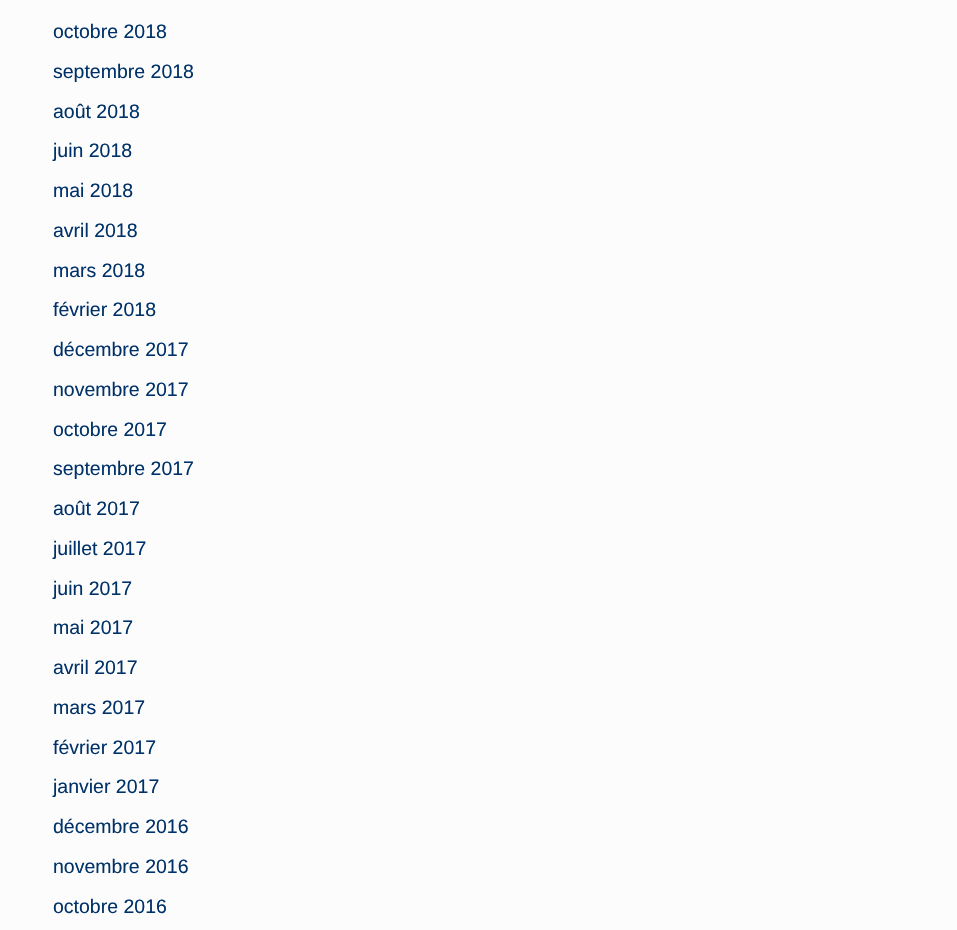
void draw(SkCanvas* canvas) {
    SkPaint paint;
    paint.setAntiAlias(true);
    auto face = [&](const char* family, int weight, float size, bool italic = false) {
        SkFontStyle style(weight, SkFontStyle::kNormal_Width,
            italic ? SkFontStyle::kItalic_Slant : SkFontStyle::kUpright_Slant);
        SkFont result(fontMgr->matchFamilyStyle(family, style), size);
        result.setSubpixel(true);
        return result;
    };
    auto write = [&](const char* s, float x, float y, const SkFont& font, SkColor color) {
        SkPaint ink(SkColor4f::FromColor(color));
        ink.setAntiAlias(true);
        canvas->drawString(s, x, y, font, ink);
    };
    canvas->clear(SkColorSetRGB(252, 252, 252));
    auto kFont1 = face("Liberation Sans", 400, 19.5f);
    write("octobre 2018", 53, 38, kFont1, SkColorSetRGB(0, 50, 105));
    write("septembre 2018", 53, 78, kFont1, SkColorSetRGB(0, 50, 105));
    write("août 2018", 53, 118, kFont1, SkColorSetRGB(0, 50, 105));
    write("juin 2018", 53, 157, kFont1, SkColorSetRGB(0, 50, 105));
    write("mai 2018", 53, 197, kFont1, SkColorSetRGB(0, 50, 105));
    write("avril 2018", 53, 237, kFont1, SkColorSetRGB(0, 50, 105));
    write("mars 2018", 53, 277, kFont1, SkColorSetRGB(0, 50, 105));
    write("février 2018", 53, 316, kFont1, SkColorSetRGB(0, 50, 105));
    write("décembre 2017", 53, 356, kFont1, SkColorSetRGB(0, 50, 105));
    write("novembre 2017", 53, 396, kFont1, SkColorSetRGB(0, 50, 105));
    write("octobre 2017", 53, 436, kFont1, SkColorSetRGB(0, 50, 105));
    write("septembre 2017", 53, 475, kFont1, SkColorSetRGB(0, 50, 105));
    write("août 2017", 53, 515, kFont1, SkColorSetRGB(0, 50, 105));
    write("juillet 2017", 53, 555, kFont1, SkColorSetRGB(0, 50, 105));
    write("juin 2017", 53, 595, kFont1, SkColorSetRGB(0, 50, 105));
    write("mai 2017", 53, 634, kFont1, SkColorSetRGB(0, 50, 105));
    write("avril 2017", 53, 674, kFont1, SkColorSetRGB(0, 50, 105));
    write("mars 2017", 53, 714, kFont1, SkColorSetRGB(0, 50, 105));
    write("février 2017", 53, 754, kFont1, SkColorSetRGB(0, 50, 105));
    write("janvier 2017", 53, 793, kFont1, SkColorSetRGB(0, 50, 105));
    write("décembre 2016", 53, 833, kFont1, SkColorSetRGB(0, 50, 105));
    write("novembre 2016", 53, 873, kFont1, SkColorSetRGB(0, 50, 105));
    write("octobre 2016", 53, 913, kFont1, SkColorSetRGB(0, 50, 105));
}
